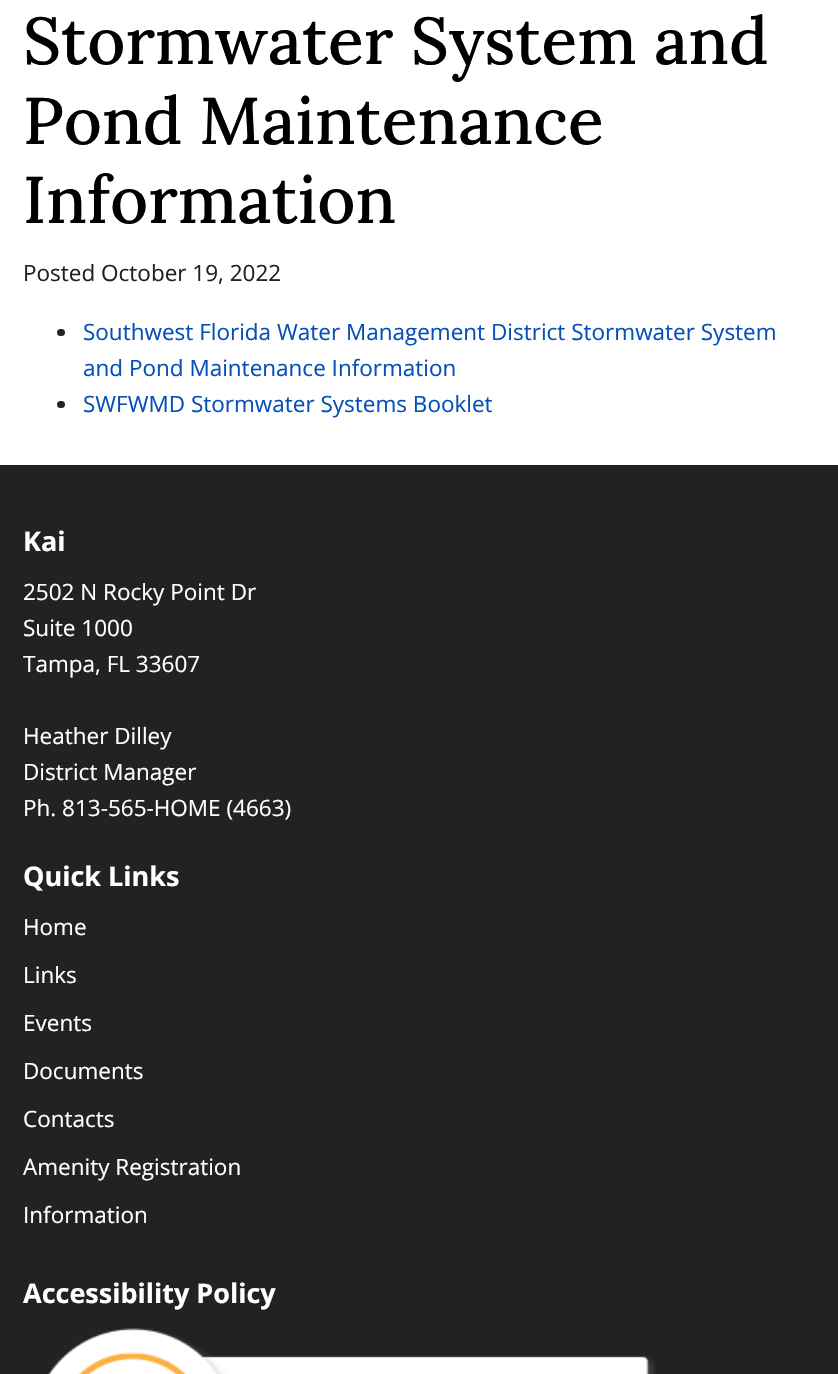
void draw(SkCanvas* canvas) {
    SkPaint paint;
    paint.setAntiAlias(true);
    auto face = [&](const char* family, int weight, float size, bool italic = false) {
        SkFontStyle style(weight, SkFontStyle::kNormal_Width,
            italic ? SkFontStyle::kItalic_Slant : SkFontStyle::kUpright_Slant);
        SkFont result(fontMgr->matchFamilyStyle(family, style), size);
        result.setSubpixel(true);
        return result;
    };
    auto write = [&](const char* s, float x, float y, const SkFont& font, SkColor color) {
        SkPaint ink(SkColor4f::FromColor(color));
        ink.setAntiAlias(true);
        canvas->drawString(s, x, y, font, ink);
    };
    auto block = [&](float x, float y, float w, float h, SkColor color) {
        SkPaint ink(SkColor4f::FromColor(color));
        ink.setAntiAlias(true);
        canvas->drawRect(SkRect::MakeXYWH(x, y, w, h), ink);
    };
    auto card = [&](float x, float y, float w, float h, float radius, SkColor color) {
        SkPaint ink(SkColor4f::FromColor(color));
        ink.setAntiAlias(true);
        canvas->drawRoundRect(SkRect::MakeXYWH(x, y, w, h), radius, radius, ink);
    };
    auto paste = [&](const char* path, float x, float y, float w, float h) {
        auto image = SkImages::DeferredFromEncodedData(SkData::MakeFromFileName(path));
        canvas->drawImageRect(image, SkRect::MakeXYWH(x, y, w, h), SkSamplingOptions());
    };
    canvas->clear(SK_ColorWHITE);
    auto kFont1 = face("Lora", 500, 66);
    write("Stormwater System and", 23, 64, kFont1, SK_ColorBLACK);
    write("Pond Maintenance", 23, 144, kFont1, SK_ColorBLACK);
    write("Information", 23, 223, kFont1, SK_ColorBLACK);
    auto kFont2 = face("Open Sans", 400, 22.5f);
    write("Posted October 19, 2022", 23, 281, kFont2, SkColorSetRGB(34, 34, 34));
    card(57, 329, 8, 7, 3.5f, SkColorSetRGB(34, 34, 34));
    write("Southwest Florida Water Management District Stormwater System", 83, 340, kFont2, SkColorSetRGB(5, 79, 185));
    write("and Pond Maintenance Information", 83, 376, kFont2, SkColorSetRGB(5, 79, 185));
    card(57, 401, 8, 7, 3.5f, SkColorSetRGB(34, 34, 34));
    write("SWFWMD Stormwater Systems Booklet", 83, 412, kFont2, SkColorSetRGB(5, 79, 185));
    block(0, 465, 838, 909, SkColorSetRGB(34, 34, 34));
    auto kFont3 = face("Open Sans", 700, 27);
    write("Kai", 23, 551, kFont3, SK_ColorWHITE);
    write("2502 N Rocky Point Dr", 23, 600, kFont2, SK_ColorWHITE);
    write("Suite 1000", 23, 636, kFont2, SK_ColorWHITE);
    write("Tampa, FL 33607", 23, 672, kFont2, SK_ColorWHITE);
    write("Heather Dilley", 23, 744, kFont2, SK_ColorWHITE);
    write("District Manager", 23, 780, kFont2, SK_ColorWHITE);
    write("Ph. 813-565-HOME (4663)", 23, 816, kFont2, SK_ColorWHITE);
    write("Quick Links", 23, 886, kFont3, SK_ColorWHITE);
    write("Home", 23, 935, kFont2, SK_ColorWHITE);
    write("Links", 23, 983, kFont2, SK_ColorWHITE);
    write("Events", 23, 1031, kFont2, SK_ColorWHITE);
    write("Documents", 23, 1079, kFont2, SK_ColorWHITE);
    write("Contacts", 23, 1127, kFont2, SK_ColorWHITE);
    write("Amenity Registration", 23, 1175, kFont2, SK_ColorWHITE);
    write("Information", 23, 1223, kFont2, SK_ColorWHITE);
    write("Accessibility Policy", 23, 1303, kFont3, SK_ColorWHITE);
    paste("pic1.png", 48, 1328, 608, 46);
}
